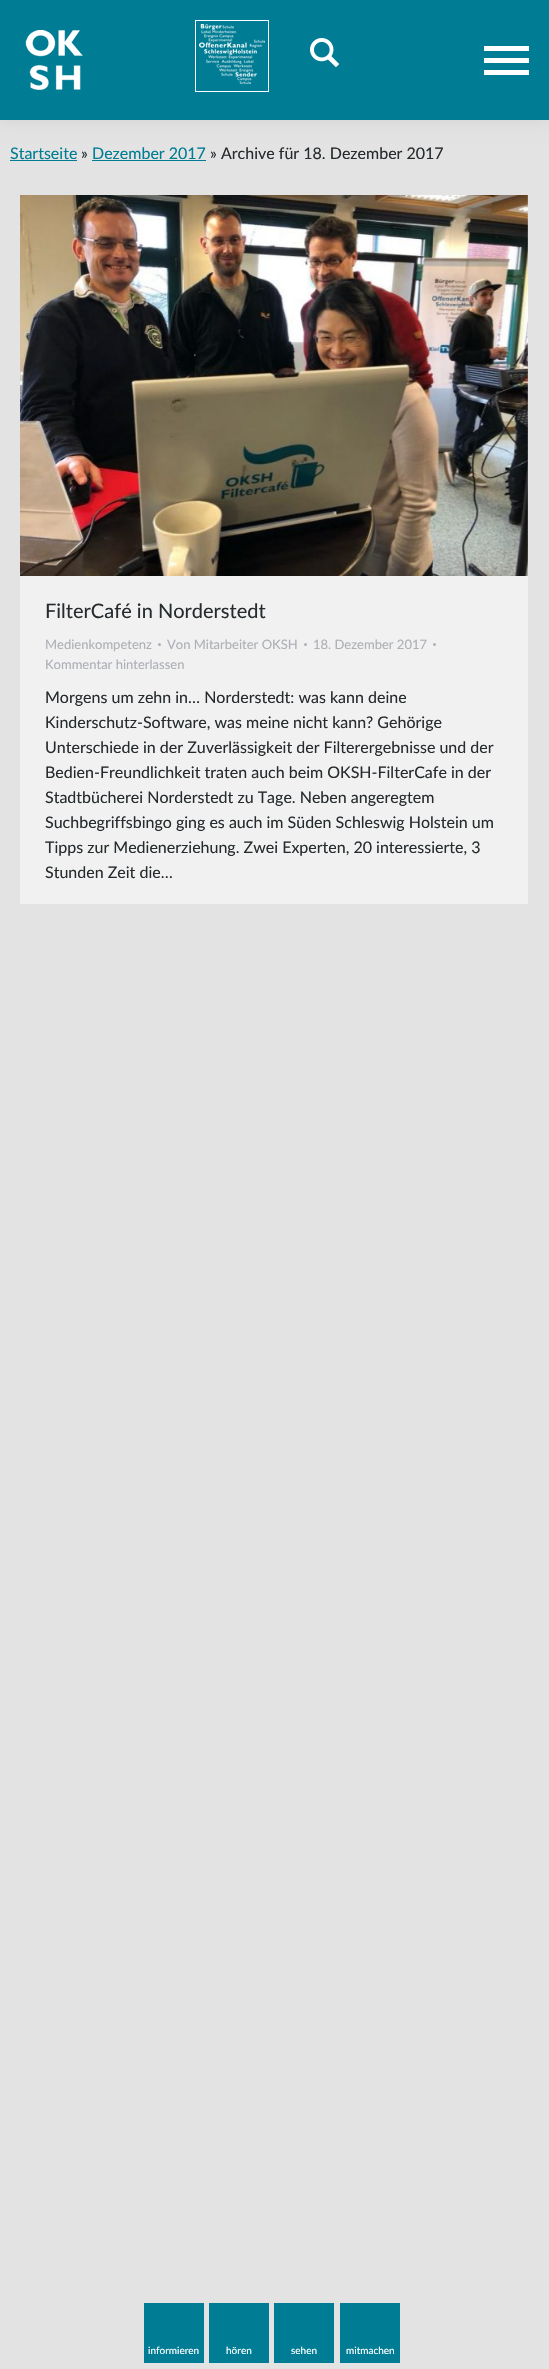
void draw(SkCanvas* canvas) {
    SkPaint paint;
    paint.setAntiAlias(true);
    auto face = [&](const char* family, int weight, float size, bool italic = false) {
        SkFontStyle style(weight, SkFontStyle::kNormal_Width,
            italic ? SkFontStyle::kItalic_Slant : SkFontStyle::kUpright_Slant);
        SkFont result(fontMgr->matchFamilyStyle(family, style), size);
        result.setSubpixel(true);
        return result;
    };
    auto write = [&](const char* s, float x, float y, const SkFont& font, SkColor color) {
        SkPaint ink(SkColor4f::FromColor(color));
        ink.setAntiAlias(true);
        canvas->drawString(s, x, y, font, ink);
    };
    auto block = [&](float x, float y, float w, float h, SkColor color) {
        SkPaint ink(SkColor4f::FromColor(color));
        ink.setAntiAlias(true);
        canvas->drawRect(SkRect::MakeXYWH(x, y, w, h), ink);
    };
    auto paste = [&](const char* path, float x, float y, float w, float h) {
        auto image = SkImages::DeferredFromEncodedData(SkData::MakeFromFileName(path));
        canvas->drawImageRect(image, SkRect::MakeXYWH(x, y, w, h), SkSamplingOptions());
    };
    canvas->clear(SkColorSetRGB(227, 227, 227));
    paint.setColor(SkColorSetARGB(18, 0, 0, 0));
    paint.setMaskFilter(SkMaskFilter::MakeBlur(kNormal_SkBlurStyle, 7.5f));
    canvas->drawRect(SkRect::MakeXYWH(-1, -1, 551, 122), paint);
    paint.setMaskFilter(nullptr);
    block(0, 0, 549, 120, SkColorSetRGB(0, 124, 148));
    paste("pic1.png", 25, 30, 58, 60);
    paint.setStyle(SkPaint::kStroke_Style);
    paint.setStrokeWidth(1);
    paint.setColor(SK_ColorWHITE);
    canvas->drawRect(SkRect::MakeXYWH(195.5f, 20.5f, 73, 71), paint);
    paste("pic2.png", 199, 24, 66, 60);
    paste("pic3.png", 310, 38, 29, 30);
    block(484, 58, 45, 5, SK_ColorWHITE);
    block(484, 46, 45, 5, SK_ColorWHITE);
    block(484, 70, 45, 5, SK_ColorWHITE);
    auto kFont1 = face("Lato", 400, 16);
    write("Startseite", 10, 159, kFont1, SkColorSetRGB(0, 124, 147));
    block(10, 160, 67, 1, SkColorSetRGB(0, 124, 147));
    write("»", 81, 159, kFont1, SkColorSetRGB(38, 43, 46));
    write("Dezember 2017", 92, 159, kFont1, SkColorSetRGB(0, 124, 147));
    block(92, 160, 114, 1, SkColorSetRGB(0, 124, 147));
    write("» Archive für 18. Dezember 2017", 210, 159, kFont1, SkColorSetRGB(38, 43, 46));
    block(20, 195, 508, 709, SkColorSetRGB(241, 241, 241));
    paste("pic4.png", 20, 195, 508, 381);
    auto kFont2 = face("Lato", 400, 20);
    write("FilterCafé in Norderstedt", 45, 618, kFont2, SkColorSetRGB(38, 43, 46));
    auto kFont3 = face("Lato", 400, 13);
    write("Medienkompetenz", 45, 649, kFont3, SkColorSetRGB(173, 176, 182));
    paint.setStyle(SkPaint::kFill_Style);
    paint.setColor(SkColorSetRGB(173, 176, 182));
    canvas->drawCircle(159.5f, 644.5f, 1.5f, paint);
    write("Von Mitarbeiter OKSH", 167, 649, kFont3, SkColorSetRGB(173, 176, 182));
    canvas->drawCircle(305.5f, 644.5f, 1.5f, paint);
    write("18. Dezember 2017", 313, 649, kFont3, SkColorSetRGB(173, 176, 182));
    canvas->drawCircle(434.5f, 644.5f, 1.5f, paint);
    write("Kommentar hinterlassen", 45, 669, kFont3, SkColorSetRGB(173, 176, 182));
    write("Morgens um zehn in… Norderstedt: was kann deine", 45, 703, kFont1, SkColorSetRGB(38, 43, 46));
    write("Kinderschutz-Software, was meine nicht kann? Gehörige", 45, 728, kFont1, SkColorSetRGB(38, 43, 46));
    write("Unterschiede in der Zuverlässigkeit der Filterergebnisse und der", 45, 753, kFont1, SkColorSetRGB(38, 43, 46));
    write("Bedien-Freundlichkeit traten auch beim OKSH-FilterCafe in der", 45, 778, kFont1, SkColorSetRGB(38, 43, 46));
    write("Stadtbücherei Norderstedt zu Tage. Neben angeregtem", 45, 803, kFont1, SkColorSetRGB(38, 43, 46));
    write("Suchbegriffsbingo ging es auch im Süden Schleswig Holstein um", 45, 828, kFont1, SkColorSetRGB(38, 43, 46));
    write("Tipps zur Medienerziehung. Zwei Experten, 20 interessierte, 3", 45, 853, kFont1, SkColorSetRGB(38, 43, 46));
    write("Stunden Zeit die…", 45, 878, kFont1, SkColorSetRGB(38, 43, 46));
    block(144, 2303, 60, 60, SkColorSetRGB(0, 124, 148));
    auto kFont4 = face("Lato", 400, 10);
    write("informieren", 148, 2354, kFont4, SK_ColorWHITE);
    block(209, 2303, 60, 60, SkColorSetRGB(0, 124, 148));
    write("hören", 226, 2354, kFont4, SK_ColorWHITE);
    block(274, 2303, 60, 60, SkColorSetRGB(0, 124, 148));
    write("sehen", 291, 2354, kFont4, SK_ColorWHITE);
    block(340, 2303, 60, 60, SkColorSetRGB(0, 124, 148));
    write("mitmachen", 346, 2354, kFont4, SK_ColorWHITE);
}
